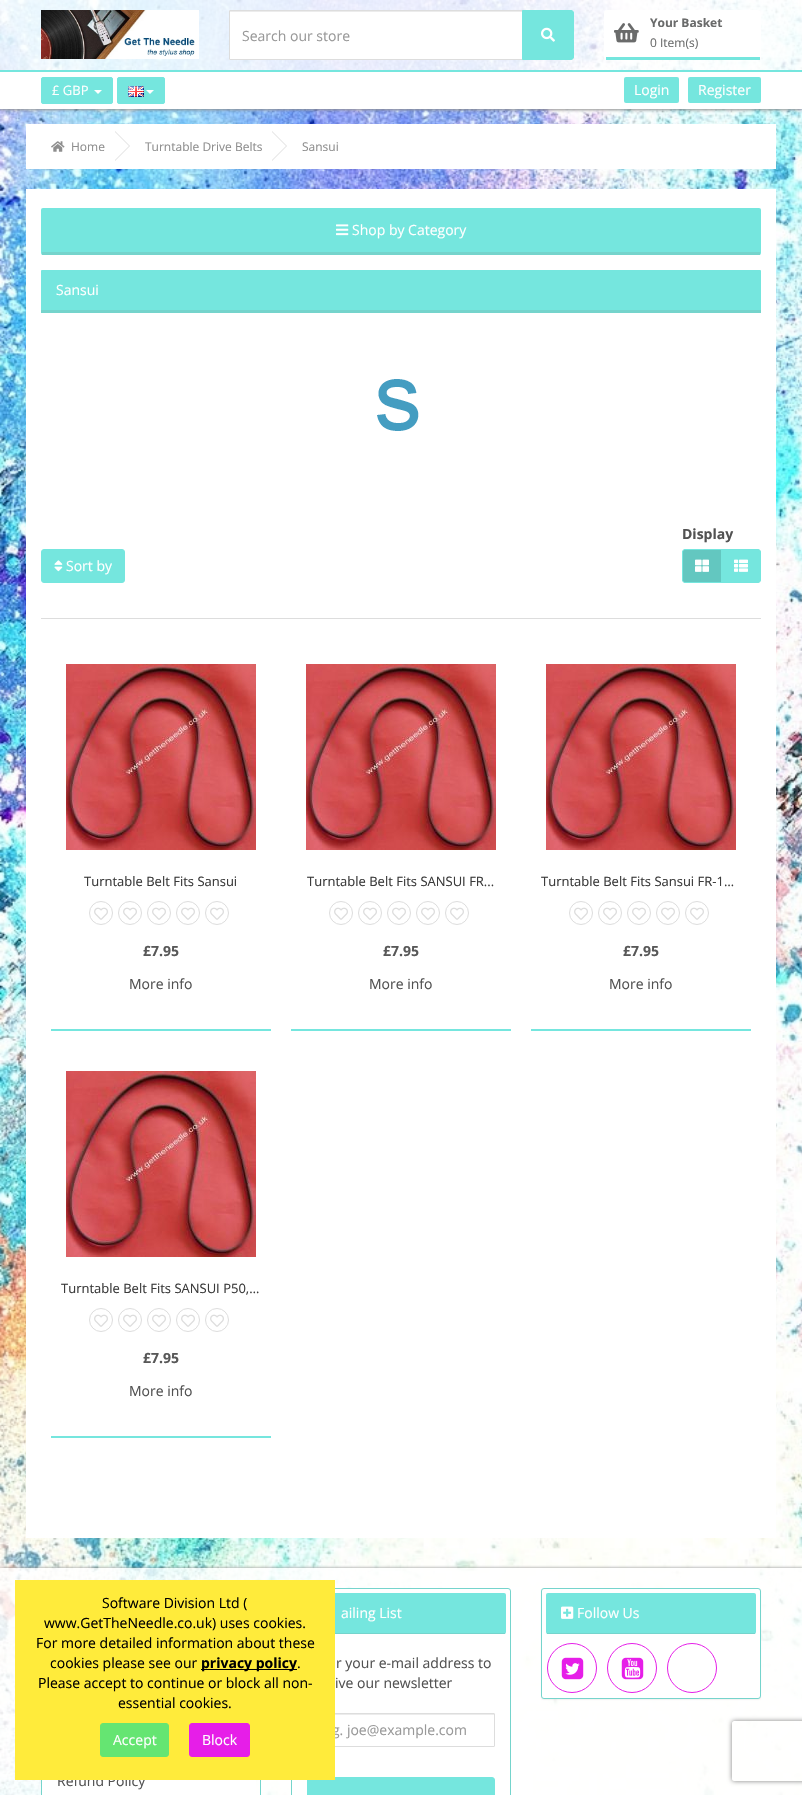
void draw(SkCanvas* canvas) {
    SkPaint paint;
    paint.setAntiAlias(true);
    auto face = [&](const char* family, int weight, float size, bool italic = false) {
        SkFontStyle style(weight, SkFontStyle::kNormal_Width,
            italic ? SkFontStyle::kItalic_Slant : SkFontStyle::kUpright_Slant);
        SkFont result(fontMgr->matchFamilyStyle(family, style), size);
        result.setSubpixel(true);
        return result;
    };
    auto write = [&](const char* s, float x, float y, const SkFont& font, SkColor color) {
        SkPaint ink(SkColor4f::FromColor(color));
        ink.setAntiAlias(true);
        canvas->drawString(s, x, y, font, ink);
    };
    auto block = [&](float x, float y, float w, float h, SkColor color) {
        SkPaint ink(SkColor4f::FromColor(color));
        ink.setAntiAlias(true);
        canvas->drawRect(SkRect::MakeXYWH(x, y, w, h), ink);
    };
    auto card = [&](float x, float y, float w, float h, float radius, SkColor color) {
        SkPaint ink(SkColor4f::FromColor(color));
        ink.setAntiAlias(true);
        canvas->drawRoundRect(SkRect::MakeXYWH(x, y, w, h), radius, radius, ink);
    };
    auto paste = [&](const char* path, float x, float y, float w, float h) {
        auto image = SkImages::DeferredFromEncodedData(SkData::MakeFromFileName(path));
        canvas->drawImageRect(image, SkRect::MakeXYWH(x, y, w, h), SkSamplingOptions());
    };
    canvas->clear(SK_ColorWHITE);
    paste("pic1.png", 0, 0, 802, 1795);
    canvas->save();
    canvas->clipRect(SkRect::MakeXYWH(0, 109, 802, 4));
    paint.setColor(SkColorSetRGB(140, 140, 140));
    paint.setMaskFilter(SkMaskFilter::MakeBlur(kNormal_SkBlurStyle, 1.5f));
    canvas->drawRect(SkRect::MakeXYWH(0, 1, 802, 109), paint);
    paint.setMaskFilter(nullptr);
    canvas->restore();
    block(0, 0, 802, 70, SkColorSetARGB(201, 255, 255, 255));
    paste("pic2.png", 41, 10, 158, 49);
    paint.setColor(SK_ColorWHITE);
    canvas->drawPath(SkPathBuilder().moveTo(230, 10).lineTo(523, 10).lineTo(523, 60).lineTo(230, 60).cubicTo(229.5f, 60, 229, 59.5f, 229, 59).lineTo(229, 11).cubicTo(229, 10.5f, 229.5f, 10, 230, 10).close().detach(), paint);
    block(230, 11, 292, 1, SkColorSetRGB(236, 236, 236));
    paint.setStyle(SkPaint::kStroke_Style);
    paint.setStrokeWidth(1);
    paint.setColor(SkColorSetRGB(221, 221, 221));
    canvas->drawPath(SkPathBuilder().moveTo(230, 10.5f).lineTo(522.5f, 10.5f).lineTo(522.5f, 59.5f).lineTo(230, 59.5f).cubicTo(229.5f, 59.5f, 229.5f, 59.5f, 229.5f, 59).lineTo(229.5f, 11).cubicTo(229.5f, 10.5f, 229.5f, 10.5f, 230, 10.5f).close().detach(), paint);
    auto kFont1 = face("Open Sans", 400, 14);
    write("Search our store", 242, 41, kFont1, SkColorSetRGB(153, 153, 153));
    paint.setStyle(SkPaint::kFill_Style);
    paint.setColor(SkColorSetRGB(117, 230, 222));
    canvas->drawPath(SkPathBuilder().moveTo(522.5f, 10.5f).lineTo(571, 10.5f).cubicTo(572.5f, 10.5f, 573.5f, 11.5f, 573.5f, 13).lineTo(573.5f, 57).cubicTo(573.5f, 58.5f, 572.5f, 59.5f, 571, 59.5f).lineTo(522.5f, 59.5f).close().detach(), paint);
    paint.setStyle(SkPaint::kStroke_Style);
    canvas->drawPath(SkPathBuilder().moveTo(522.5f, 10.5f).lineTo(571, 10.5f).cubicTo(572.5f, 10.5f, 573.5f, 11.5f, 573.5f, 13).lineTo(573.5f, 57).cubicTo(573.5f, 58.5f, 572.5f, 59.5f, 571, 59.5f).lineTo(522.5f, 59.5f).close().detach(), paint);
    paste("pic3.png", 541, 27, 14, 15);
    card(604, 10, 157, 50, 3, SK_ColorWHITE);
    block(606, 57, 154, 3, SkColorSetRGB(117, 230, 222));
    paste("pic4.png", 614, 23, 25, 20);
    auto kFont2 = face("Open Sans", 700, 12);
    write("Your Basket", 650, 27, kFont2, SkColorSetRGB(106, 107, 107));
    auto kFont3 = face("Open Sans", 400, 12);
    write("0 Item(s)", 650, 47, kFont3, SkColorSetRGB(106, 107, 107));
    block(0, 72, 802, 37, SK_ColorWHITE);
    block(0, 70, 802, 2, SkColorSetRGB(117, 230, 222));
    paint.setStyle(SkPaint::kFill_Style);
    canvas->drawRoundRect(SkRect::MakeXYWH(41.5f, 77.5f, 71, 26), 1.5f, 1.5f, paint);
    paint.setStyle(SkPaint::kStroke_Style);
    canvas->drawRoundRect(SkRect::MakeXYWH(41.5f, 77.5f, 71, 26), 1.5f, 1.5f, paint);
    auto kFont4 = face("Open Sans", 400, 13);
    write("£ GBP", 52, 95, kFont4, SK_ColorWHITE);
    paint.setStyle(SkPaint::kFill_Style);
    paint.setColor(SK_ColorWHITE);
    canvas->drawPath(SkPathBuilder().moveTo(94, 90).lineTo(102, 90).lineTo(98, 94).close().detach(), paint);
    paint.setColor(SkColorSetRGB(117, 230, 222));
    canvas->drawRoundRect(SkRect::MakeXYWH(117.5f, 77.5f, 47, 26), 1.5f, 1.5f, paint);
    paint.setStyle(SkPaint::kStroke_Style);
    canvas->drawRoundRect(SkRect::MakeXYWH(117.5f, 77.5f, 47, 26), 1.5f, 1.5f, paint);
    paste("pic5.png", 128, 86, 16, 11);
    paint.setStyle(SkPaint::kFill_Style);
    paint.setColor(SK_ColorWHITE);
    canvas->drawPath(SkPathBuilder().moveTo(146, 90).lineTo(154, 90).lineTo(150, 94).close().detach(), paint);
    card(624, 77, 55, 26, 2, SkColorSetRGB(117, 230, 222));
    write("Login", 634, 95, kFont1, SK_ColorWHITE);
    card(688, 77, 73, 26, 2, SkColorSetRGB(117, 230, 222));
    write("Register", 698, 95, kFont1, SK_ColorWHITE);
    block(26, 124, 750, 45, SK_ColorWHITE);
    paint.setColor(SkColorSetRGB(221, 221, 221));
    canvas->drawPath(SkPathBuilder().moveTo(115, 161).lineTo(115, 131).lineTo(130, 146).close().detach(), paint);
    paste("pic6.png", 51, 141, 14, 11);
    write("Home", 71, 151, kFont3, SkColorSetRGB(142, 142, 142));
    paint.setColor(SK_ColorWHITE);
    canvas->drawPath(SkPathBuilder().moveTo(115, 160).lineTo(115, 132).lineTo(129, 146).close().detach(), paint);
    paint.setColor(SkColorSetRGB(221, 221, 221));
    canvas->drawPath(SkPathBuilder().moveTo(272, 161).lineTo(272, 131).lineTo(287, 146).close().detach(), paint);
    write("Turntable Drive Belts", 145, 151, kFont3, SkColorSetRGB(142, 142, 142));
    paint.setColor(SK_ColorWHITE);
    canvas->drawPath(SkPathBuilder().moveTo(272, 160).lineTo(272, 132).lineTo(286, 146).close().detach(), paint);
    write("Sansui", 302, 151, kFont3, SkColorSetRGB(142, 142, 142));
    block(26, 189, 750, 1349, SK_ColorWHITE);
    card(41, 208, 720, 47, 2, SkColorSetRGB(117, 230, 222));
    block(42, 252, 718, 3, SkColorSetRGB(117, 212, 204));
    paste("pic7.png", 336, 224, 13, 12);
    write("Shop by Category", 352, 235, kFont1, SK_ColorWHITE);
    paint.setColor(SkColorSetRGB(117, 230, 222));
    canvas->drawPath(SkPathBuilder().moveTo(42, 270).lineTo(760, 270).cubicTo(760.5f, 270, 761, 270.5f, 761, 271).lineTo(761, 313).lineTo(41, 313).lineTo(41, 271).cubicTo(41, 270.5f, 41.5f, 270, 42, 270).close().detach(), paint);
    block(41, 310, 720, 3, SkColorSetRGB(117, 212, 204));
    write("Sansui", 56, 295, kFont1, SK_ColorWHITE);
    paste("pic8.png", 377, 379, 42, 52);
    auto kFont5 = face("Open Sans", 700, 14);
    write("Display", 682, 539, kFont5, SkColorSetRGB(82, 82, 82));
    canvas->drawPath(SkPathBuilder().moveTo(721.5f, 549.5f).lineTo(758, 549.5f).cubicTo(759.5f, 549.5f, 760.5f, 550.5f, 760.5f, 552).lineTo(760.5f, 580).cubicTo(760.5f, 581.5f, 759.5f, 582.5f, 758, 582.5f).lineTo(721.5f, 582.5f).close().detach(), paint);
    paint.setStyle(SkPaint::kStroke_Style);
    canvas->drawPath(SkPathBuilder().moveTo(721.5f, 549.5f).lineTo(758, 549.5f).cubicTo(759.5f, 549.5f, 760.5f, 550.5f, 760.5f, 552).lineTo(760.5f, 580).cubicTo(760.5f, 581.5f, 759.5f, 582.5f, 758, 582.5f).lineTo(721.5f, 582.5f).close().detach(), paint);
    paint.setStyle(SkPaint::kFill_Style);
    paint.setColor(SkColorSetRGB(99, 199, 192));
    canvas->drawPath(SkPathBuilder().moveTo(685, 549.5f).lineTo(721.5f, 549.5f).lineTo(721.5f, 582.5f).lineTo(685, 582.5f).cubicTo(683.5f, 582.5f, 682.5f, 581.5f, 682.5f, 580).lineTo(682.5f, 552).cubicTo(682.5f, 550.5f, 683.5f, 549.5f, 685, 549.5f).close().detach(), paint);
    paint.setStyle(SkPaint::kStroke_Style);
    paint.setColor(SkColorSetRGB(117, 230, 222));
    canvas->drawPath(SkPathBuilder().moveTo(685, 549.5f).lineTo(721.5f, 549.5f).lineTo(721.5f, 582.5f).lineTo(685, 582.5f).cubicTo(683.5f, 582.5f, 682.5f, 581.5f, 682.5f, 580).lineTo(682.5f, 552).cubicTo(682.5f, 550.5f, 683.5f, 549.5f, 685, 549.5f).close().detach(), paint);
    paste("pic9.png", 695, 559, 14, 13);
    paste("pic10.png", 734, 559, 14, 13);
    paint.setStyle(SkPaint::kFill_Style);
    canvas->drawRoundRect(SkRect::MakeXYWH(41.5f, 549.5f, 83, 33), 2.5f, 2.5f, paint);
    paint.setStyle(SkPaint::kStroke_Style);
    canvas->drawRoundRect(SkRect::MakeXYWH(41.5f, 549.5f, 83, 33), 2.5f, 2.5f, paint);
    paste("pic11.png", 54, 560, 9, 12);
    write("Sort by", 66, 571, kFont1, SK_ColorWHITE);
    block(41, 618, 720, 1, SkColorSetRGB(221, 221, 221));
    block(51, 1029, 220, 2, SkColorSetRGB(117, 230, 222));
    paste("pic12.png", 66, 664, 190, 186);
    write("Turntable Belt Fits Sansui", 84, 886, kFont4, SkColorSetRGB(58, 58, 58));
    paint.setColor(SkColorSetRGB(221, 221, 221));
    canvas->drawCircle(101, 913, 11.5f, paint);
    paste("pic13.png", 94, 907, 14, 13);
    canvas->drawCircle(130, 913, 11.5f, paint);
    paste("pic13.png", 123, 907, 14, 13);
    canvas->drawCircle(159, 913, 11.5f, paint);
    paste("pic13.png", 152, 907, 14, 13);
    canvas->drawCircle(188, 913, 11.5f, paint);
    paste("pic13.png", 181, 907, 14, 13);
    canvas->drawCircle(217, 913, 11.5f, paint);
    paste("pic13.png", 210, 907, 14, 13);
    write("£7.95", 143, 956, kFont5, SkColorSetRGB(88, 88, 88));
    write("More info", 129, 989, kFont1, SkColorSetRGB(82, 82, 82));
    block(291, 1029, 220, 2, SkColorSetRGB(117, 230, 222));
    paste("pic12.png", 306, 664, 190, 186);
    write("Turntable Belt Fits SANSUI FR...", 307, 886, kFont4, SkColorSetRGB(58, 58, 58));
    canvas->drawCircle(341, 913, 11.5f, paint);
    paste("pic13.png", 334, 907, 14, 13);
    canvas->drawCircle(370, 913, 11.5f, paint);
    paste("pic13.png", 363, 907, 14, 13);
    canvas->drawCircle(399, 913, 11.5f, paint);
    paste("pic13.png", 392, 907, 14, 13);
    canvas->drawCircle(428, 913, 11.5f, paint);
    paste("pic13.png", 421, 907, 14, 13);
    canvas->drawCircle(457, 913, 11.5f, paint);
    paste("pic13.png", 450, 907, 14, 13);
    write("£7.95", 383, 956, kFont5, SkColorSetRGB(88, 88, 88));
    write("More info", 369, 989, kFont1, SkColorSetRGB(82, 82, 82));
    block(531, 1029, 220, 2, SkColorSetRGB(117, 230, 222));
    paste("pic12.png", 546, 664, 190, 186);
    write("Turntable Belt Fits Sansui FR-1…", 541, 886, kFont4, SkColorSetRGB(58, 58, 58));
    canvas->drawCircle(581, 913, 11.5f, paint);
    paste("pic13.png", 574, 907, 14, 13);
    canvas->drawCircle(610, 913, 11.5f, paint);
    paste("pic13.png", 603, 907, 14, 13);
    canvas->drawCircle(639, 913, 11.5f, paint);
    paste("pic13.png", 632, 907, 14, 13);
    canvas->drawCircle(668, 913, 11.5f, paint);
    paste("pic13.png", 661, 907, 14, 13);
    canvas->drawCircle(697, 913, 11.5f, paint);
    paste("pic13.png", 690, 907, 14, 13);
    write("£7.95", 623, 956, kFont5, SkColorSetRGB(88, 88, 88));
    write("More info", 609, 989, kFont1, SkColorSetRGB(82, 82, 82));
    block(51, 1436, 220, 2, SkColorSetRGB(117, 230, 222));
    paste("pic12.png", 66, 1071, 190, 186);
    write("Turntable Belt Fits SANSUI P50,…", 61, 1293, kFont4, SkColorSetRGB(58, 58, 58));
    canvas->drawCircle(101, 1320, 11.5f, paint);
    paste("pic13.png", 94, 1314, 14, 13);
    canvas->drawCircle(130, 1320, 11.5f, paint);
    paste("pic13.png", 123, 1314, 14, 13);
    canvas->drawCircle(159, 1320, 11.5f, paint);
    paste("pic13.png", 152, 1314, 14, 13);
    canvas->drawCircle(188, 1320, 11.5f, paint);
    paste("pic13.png", 181, 1314, 14, 13);
    canvas->drawCircle(217, 1320, 11.5f, paint);
    paste("pic13.png", 210, 1314, 14, 13);
    write("£7.95", 143, 1363, kFont5, SkColorSetRGB(88, 88, 88));
    write("More info", 129, 1396, kFont1, SkColorSetRGB(82, 82, 82));
    canvas->save();
    canvas->clipRect(SkRect::MakeXYWH(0, 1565, 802, 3));
    paint.setStyle(SkPaint::kFill_Style);
    paint.setColor(SkColorSetRGB(140, 140, 140));
    paint.setMaskFilter(SkMaskFilter::MakeBlur(kNormal_SkBlurStyle, 1.5f));
    canvas->drawRect(SkRect::MakeXYWH(1, 1568, 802, 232), paint);
    paint.setMaskFilter(nullptr);
    canvas->restore();
    block(0, 1568, 802, 227, SkColorSetARGB(201, 255, 255, 255));
    paint.setColor(SK_ColorWHITE);
    canvas->drawRoundRect(SkRect::MakeXYWH(291.5f, 1588.5f, 219, 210), 2.5f, 2.5f, paint);
    paint.setStyle(SkPaint::kStroke_Style);
    paint.setColor(SkColorSetRGB(117, 212, 204));
    canvas->drawRoundRect(SkRect::MakeXYWH(291.5f, 1588.5f, 219, 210), 2.5f, 2.5f, paint);
    card(296, 1593, 210, 41, 2, SkColorSetRGB(117, 230, 222));
    block(335, 1714, 159, 1, SkColorSetRGB(236, 236, 236));
    paint.setColor(SkColorSetRGB(221, 221, 221));
    canvas->drawRoundRect(SkRect::MakeXYWH(307.5f, 1713.5f, 187, 33), 0.5f, 0.5f, paint);
    write("g. joe@example.com", 332, 1735, kFont1, SkColorSetRGB(153, 153, 153));
    paint.setStyle(SkPaint::kFill_Style);
    paint.setColor(SkColorSetRGB(117, 230, 222));
    canvas->drawRoundRect(SkRect::MakeXYWH(307.5f, 1777.5f, 187, 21), 2.5f, 2.5f, paint);
    paint.setStyle(SkPaint::kStroke_Style);
    canvas->drawRoundRect(SkRect::MakeXYWH(307.5f, 1777.5f, 187, 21), 2.5f, 2.5f, paint);
    block(42, 1780, 214, 15, SK_ColorWHITE);
    paint.setColor(SkColorSetRGB(117, 212, 204));
    canvas->drawRect(SkRect::MakeXYWH(41.5f, 1588.5f, 219, 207), paint);
    write("Refund Policy", 57, 1786, kFont1, SkColorSetRGB(82, 82, 82));
    block(15, 1580, 320, 200, SkColorSetRGB(255, 235, 59));
    write("Software Division Ltd (", 102, 1608, kFont1, SK_ColorBLACK);
    write("www.GetTheNeedle.co.uk) uses cookies.", 44, 1628, kFont1, SK_ColorBLACK);
    write("For more detailed information about these", 36, 1648, kFont1, SK_ColorBLACK);
    write("cookies please see our", 50, 1668, kFont1, SK_ColorBLACK);
    block(201, 1669, 96, 1, SK_ColorBLACK);
    write("privacy policy", 201, 1668, kFont5, SK_ColorBLACK);
    write(".", 297, 1668, kFont1, SK_ColorBLACK);
    write("Please accept to continue or block all non-", 38, 1688, kFont1, SK_ColorBLACK);
    write("essential cookies.", 118, 1708, kFont1, SK_ColorBLACK);
    paint.setStyle(SkPaint::kFill_Style);
    paint.setColor(SkColorSetRGB(101, 229, 114));
    canvas->drawRoundRect(SkRect::MakeXYWH(100.5f, 1723.5f, 68, 33), 2.5f, 2.5f, paint);
    paint.setStyle(SkPaint::kStroke_Style);
    canvas->drawRoundRect(SkRect::MakeXYWH(100.5f, 1723.5f, 68, 33), 2.5f, 2.5f, paint);
    write("Accept", 113, 1745, kFont1, SK_ColorWHITE);
    paint.setStyle(SkPaint::kFill_Style);
    paint.setColor(SkColorSetRGB(230, 30, 232));
    canvas->drawRoundRect(SkRect::MakeXYWH(189.5f, 1723.5f, 60, 33), 2.5f, 2.5f, paint);
    paint.setStyle(SkPaint::kStroke_Style);
    canvas->drawRoundRect(SkRect::MakeXYWH(189.5f, 1723.5f, 60, 33), 2.5f, 2.5f, paint);
    write("Block", 202, 1745, kFont1, SK_ColorWHITE);
    block(335, 1633, 170, 1, SkColorSetRGB(117, 212, 204));
    write("ailing List", 341, 1618, kFont1, SK_ColorWHITE);
    write("r your e-mail address to", 336, 1668, kFont1, SkColorSetRGB(82, 82, 82));
    write("ive our newsletter", 335, 1688, kFont1, SkColorSetRGB(82, 82, 82));
    canvas->save();
    canvas->clipPath(SkPathBuilder(SkPathFillType::kEvenOdd).moveTo(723, 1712).lineTo(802, 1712).lineTo(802, 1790).lineTo(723, 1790).close().moveTo(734, 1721).lineTo(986, 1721).cubicTo(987, 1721, 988, 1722, 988, 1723).lineTo(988, 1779).cubicTo(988, 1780, 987, 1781, 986, 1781).lineTo(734, 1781).cubicTo(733, 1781, 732, 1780, 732, 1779).lineTo(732, 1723).cubicTo(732, 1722, 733, 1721, 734, 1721).close().detach(), true);
    paint.setStyle(SkPaint::kFill_Style);
    paint.setColor(SkColorSetRGB(128, 128, 128));
    paint.setMaskFilter(SkMaskFilter::MakeBlur(kNormal_SkBlurStyle, 2.5f));
    canvas->drawRoundRect(SkRect::MakeXYWH(732, 1721, 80, 60), 2, 2, paint);
    paint.setMaskFilter(nullptr);
    canvas->restore();
    paint.setColor(SkColorSetARGB(13, 0, 0, 0));
    paint.setMaskFilter(SkMaskFilter::MakeBlur(kNormal_SkBlurStyle, 0.5f));
    canvas->drawRoundRect(SkRect::MakeXYWH(541, 1589, 220, 111), 3, 3, paint);
    paint.setMaskFilter(nullptr);
    paint.setColor(SK_ColorWHITE);
    canvas->drawRoundRect(SkRect::MakeXYWH(541.5f, 1588.5f, 219, 110), 2.5f, 2.5f, paint);
    paint.setStyle(SkPaint::kStroke_Style);
    paint.setColor(SkColorSetRGB(117, 212, 204));
    canvas->drawRoundRect(SkRect::MakeXYWH(541.5f, 1588.5f, 219, 110), 2.5f, 2.5f, paint);
    card(546, 1593, 210, 41, 2, SkColorSetRGB(117, 230, 222));
    block(547, 1633, 208, 1, SkColorSetRGB(117, 212, 204));
    paste("pic14.png", 561, 1606, 13, 13);
    write("Follow Us", 577, 1618, kFont1, SK_ColorWHITE);
    paint.setColor(SkColorSetRGB(230, 30, 232));
    canvas->drawCircle(572, 1668, 24.5f, paint);
    paste("pic15.png", 561, 1657, 23, 23);
    canvas->drawCircle(632, 1668, 24.5f, paint);
    paste("pic16.png", 621, 1657, 23, 23);
    canvas->drawCircle(692, 1668, 24.5f, paint);
}
